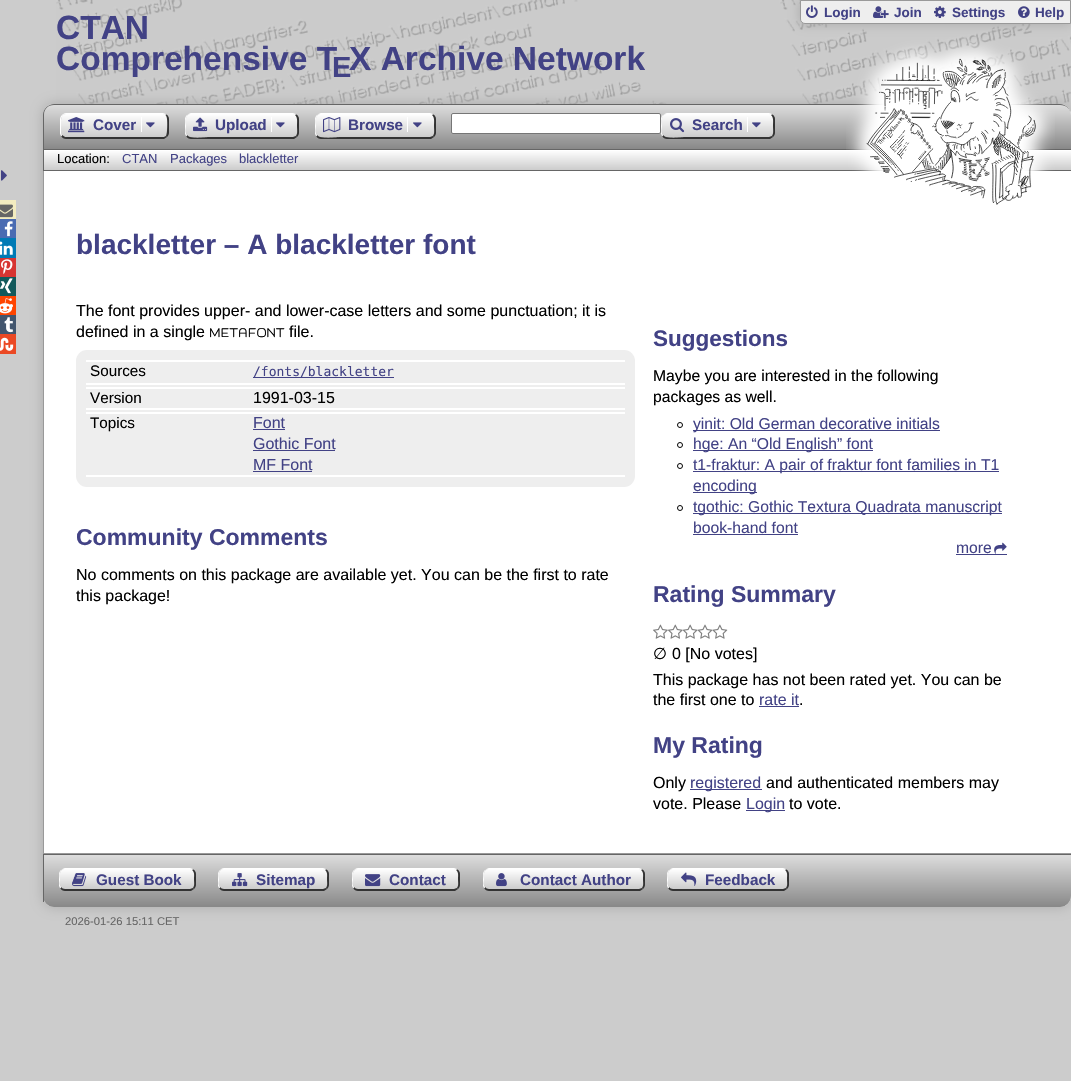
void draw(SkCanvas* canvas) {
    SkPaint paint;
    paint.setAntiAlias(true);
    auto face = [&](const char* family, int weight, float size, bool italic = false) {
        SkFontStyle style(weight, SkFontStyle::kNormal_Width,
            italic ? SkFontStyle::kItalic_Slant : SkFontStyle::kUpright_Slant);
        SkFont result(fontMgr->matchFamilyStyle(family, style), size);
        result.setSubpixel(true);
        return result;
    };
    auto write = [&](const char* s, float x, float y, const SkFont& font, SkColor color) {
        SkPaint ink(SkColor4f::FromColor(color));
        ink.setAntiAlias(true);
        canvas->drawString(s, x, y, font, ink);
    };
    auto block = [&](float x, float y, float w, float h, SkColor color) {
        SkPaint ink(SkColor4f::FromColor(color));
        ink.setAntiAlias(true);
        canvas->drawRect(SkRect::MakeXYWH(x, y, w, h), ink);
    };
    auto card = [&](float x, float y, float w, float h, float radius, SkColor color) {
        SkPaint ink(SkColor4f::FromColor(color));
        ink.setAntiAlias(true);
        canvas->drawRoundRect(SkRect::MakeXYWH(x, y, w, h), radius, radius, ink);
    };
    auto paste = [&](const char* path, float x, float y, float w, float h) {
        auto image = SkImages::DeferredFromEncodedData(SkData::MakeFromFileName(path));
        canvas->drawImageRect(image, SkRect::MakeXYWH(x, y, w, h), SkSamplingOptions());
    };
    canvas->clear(SkColorSetRGB(204, 204, 204));
    paste("pic5.png", 56, 0, 1015, 104);
    paint.setColor(SkColorSetRGB(170, 170, 170));
    paint.setMaskFilter(SkMaskFilter::MakeBlur(kNormal_SkBlurStyle, 6.5f));
    canvas->drawRoundRect(SkRect::MakeXYWH(43, 104, 1028, 803), 11, 11, paint);
    paint.setMaskFilter(nullptr);
    card(43, 104, 1028, 803, 11, SK_ColorWHITE);
    canvas->save();
    canvas->clipPath(SkPathBuilder().moveTo(54, 104).lineTo(1060, 104).cubicTo(1066, 104, 1071, 109, 1071, 115).lineTo(1071, 149).lineTo(43, 149).lineTo(43, 115).cubicTo(43, 109, 48, 104, 54, 104).close().detach(), true);
    {
        const SkColor colors[] = {SkColorSetRGB(221, 221, 221), SkColorSetRGB(136, 136, 136)};
        const float stops[] = {0, 1};
        const SkPoint ends[] = {{558, 105}, {558, 149}};
        paint.setShader(SkGradientShader::MakeLinear(ends, colors, stops, 2, SkTileMode::kClamp));
        paint.setAlpha(255);
    }
    canvas->drawRect(SkRect::MakeXYWH(43, 105, 1028, 44), paint);
    canvas->restore();
    paint.setShader(nullptr);
    paint.setColor(SkColorSetRGB(102, 102, 102));
    canvas->drawPath(SkPathBuilder(SkPathFillType::kEvenOdd).moveTo(54, 104).lineTo(1060, 104).cubicTo(1066, 104, 1071, 109, 1071, 115).lineTo(1071, 149).lineTo(43, 149).lineTo(43, 115).cubicTo(43, 109, 48, 104, 54, 104).close().moveTo(54, 105).lineTo(1060, 105).cubicTo(1066, 105, 1071, 109, 1071, 115).lineTo(1071, 149).lineTo(44, 149).lineTo(44, 115).cubicTo(44, 109, 48, 105, 54, 105).close().detach(), paint);
    {
        const SkColor colors[] = {SK_ColorWHITE, SkColorSetRGB(204, 204, 204)};
        const float stops[] = {0, 1};
        const SkPoint ends[] = {{558, 150}, {558, 170}};
        paint.setShader(SkGradientShader::MakeLinear(ends, colors, stops, 2, SkTileMode::kClamp));
        paint.setAlpha(255);
    }
    canvas->drawRect(SkRect::MakeXYWH(44, 151, 1027, 19), paint);
    block(43, 149, 1028, 1, SkColorSetRGB(102, 102, 102));
    block(43, 170, 1028, 1, SkColorSetRGB(102, 102, 102));
    paste("pic6.png", 846, 39, 209, 166);
    paint.setShader(nullptr);
    paint.setColor(SkColorSetRGB(170, 170, 170));
    paint.setMaskFilter(SkMaskFilter::MakeBlur(kNormal_SkBlurStyle, 6));
    canvas->drawRect(SkRect::MakeXYWH(800, 0, 271, 24), paint);
    paint.setMaskFilter(nullptr);
    paint.setColor(SkColorSetRGB(238, 238, 238));
    canvas->drawPath(SkPathBuilder().moveTo(800.5f, 0.5f).lineTo(1070.5f, 0.5f).lineTo(1070.5f, 23.5f).lineTo(805, 23.5f).cubicTo(802.5f, 23.5f, 800.5f, 21.5f, 800.5f, 19).close().detach(), paint);
    paint.setStyle(SkPaint::kStroke_Style);
    paint.setStrokeWidth(1);
    paint.setColor(SkColorSetRGB(153, 153, 153));
    canvas->drawPath(SkPathBuilder().moveTo(800.5f, 0.5f).lineTo(1070.5f, 0.5f).lineTo(1070.5f, 23.5f).lineTo(805, 23.5f).cubicTo(802.5f, 23.5f, 800.5f, 21.5f, 800.5f, 19).close().detach(), paint);
    paste("pic1.png", 806, 5, 12, 13);
    auto kFont1 = face("Liberation Sans", 700, 13.5f);
    write("Login", 824, 17, kFont1, SkColorSetRGB(66, 66, 133));
    paste("pic2.png", 873, 6, 16, 12);
    write("Join", 894, 17, kFont1, SkColorSetRGB(66, 66, 133));
    paste("pic3.png", 934, 6, 12, 12);
    write("Settings", 952, 17, kFont1, SkColorSetRGB(66, 66, 133));
    paste("pic4.png", 1018, 6, 12, 12);
    write("Help", 1035, 17, kFont1, SkColorSetRGB(66, 66, 133));
    auto kFont2 = face("Liberation Sans", 700, 33.5f);
    write("CTAN", 56, 39, kFont2, SkColorSetRGB(66, 66, 133));
    write("Comprehensive T", 56, 70, kFont2, SkColorSetRGB(66, 66, 133));
    auto kFont3 = face("Liberation Sans", 700, 29);
    write("E", 332, 77, kFont3, SkColorSetRGB(66, 66, 133));
    write("X Archive Network", 349, 70, kFont2, SkColorSetRGB(66, 66, 133));
    paint.setStyle(SkPaint::kFill_Style);
    {
        const SkColor colors[] = {SK_ColorWHITE, SkColorSetRGB(204, 204, 204)};
        const float stops[] = {0, 1};
        const SkPoint ends[] = {{114, 114}, {114, 137}};
        paint.setShader(SkGradientShader::MakeLinear(ends, colors, stops, 2, SkTileMode::kClamp));
        paint.setAlpha(255);
    }
    canvas->drawPath(SkPathBuilder().moveTo(66, 114).lineTo(163, 114).cubicTo(169, 114, 167, 127, 167, 131).cubicTo(167, 133, 167, 136, 164, 137).lineTo(65, 137).lineTo(62, 135).cubicTo(60, 133, 61, 129, 61, 126).cubicTo(61, 122, 60, 114, 66, 114).close().detach(), paint);
    paint.setShader(nullptr);
    paint.setColor(SK_ColorWHITE);
    canvas->drawPath(SkPathBuilder().moveTo(66, 113).cubicTo(64, 113, 63, 114, 62, 115).lineTo(63, 116).cubicTo(63, 114, 65, 114, 66, 114).lineTo(163, 114).lineTo(165, 115).lineTo(166, 114).lineTo(163, 113).close().detach(), paint);
    paint.setColor(SkColorSetRGB(51, 51, 51));
    canvas->drawPath(SkPathBuilder().moveTo(169, 133).lineTo(169, 119).cubicTo(169, 117, 168, 115.5f, 166.5f, 114.5f).lineTo(165.5f, 115).cubicTo(166.5f, 116, 167, 117.5f, 167, 119).cubicTo(167.5f, 121, 167.5f, 133.5f, 166, 136).lineTo(167, 137).cubicTo(168, 136, 169, 134.5f, 169, 133).close().detach(), paint);
    canvas->drawPath(SkPathBuilder().moveTo(66, 139).lineTo(164, 139).lineTo(167, 137).lineTo(166, 136).lineTo(164, 137).lineTo(65, 137).lineTo(62, 135).lineTo(61, 136).cubicTo(62, 138, 64, 139, 66, 139).close().detach(), paint);
    paint.setColor(SK_ColorWHITE);
    canvas->drawPath(SkPathBuilder().moveTo(60, 119).lineTo(60, 133).cubicTo(60, 134, 60.5f, 135.5f, 61.5f, 136.5f).lineTo(62, 135).cubicTo(61, 134, 61, 133, 61, 132).lineTo(61, 118.5f).lineTo(62.5f, 115.5f).lineTo(62, 115).cubicTo(61, 116, 60, 117.5f, 60, 119).close().detach(), paint);
    paste("pic7.png", 68, 117, 17, 16);
    auto kFont4 = face("Liberation Sans", 700, 15.25f);
    write("Cover", 93, 130, kFont4, SkColorSetRGB(66, 66, 133));
    block(141, 117, 1, 15, SK_ColorWHITE);
    paste("pic8.png", 146, 122, 9, 6);
    {
        const SkColor colors[] = {SK_ColorWHITE, SkColorSetRGB(204, 204, 204)};
        const float stops[] = {0, 1};
        const SkPoint ends[] = {{242, 114}, {242, 137}};
        paint.setShader(SkGradientShader::MakeLinear(ends, colors, stops, 2, SkTileMode::kClamp));
        paint.setAlpha(255);
    }
    canvas->drawPath(SkPathBuilder().moveTo(191, 114).lineTo(293, 114).cubicTo(295, 114, 297, 116, 297, 119).lineTo(297, 133).cubicTo(297, 135, 295, 137, 293, 137).lineTo(191, 137).cubicTo(188, 137, 186, 135, 186, 133).lineTo(186, 119).cubicTo(186, 116, 188, 114, 191, 114).close().detach(), paint);
    paint.setShader(nullptr);
    paint.setColor(SK_ColorWHITE);
    canvas->drawPath(SkPathBuilder().moveTo(191, 113).cubicTo(190, 113, 188, 114, 187, 115).cubicTo(188, 114, 190, 114, 191, 114).lineTo(293, 114).lineTo(295, 115).lineTo(296, 114).lineTo(293, 113).close().detach(), paint);
    paint.setColor(SkColorSetRGB(51, 51, 51));
    canvas->drawPath(SkPathBuilder().moveTo(299, 133).lineTo(299, 119).cubicTo(299, 117, 298, 115.5f, 296.5f, 114.5f).lineTo(295, 115).cubicTo(298, 117.5f, 297, 123, 297, 126).cubicTo(297, 129, 298, 133.5f, 296, 136).lineTo(297, 137).cubicTo(298, 136, 299, 134.5f, 299, 133).close().detach(), paint);
    canvas->drawPath(SkPathBuilder().moveTo(191, 139).lineTo(294, 139).lineTo(297, 137).lineTo(296, 136).lineTo(293, 137).lineTo(208, 137).cubicTo(207, 137, 191, 140, 187, 135).lineTo(186, 136).cubicTo(187, 138, 189, 139, 191, 139).close().detach(), paint);
    paint.setColor(SK_ColorWHITE);
    canvas->drawPath(SkPathBuilder().moveTo(185, 119).lineTo(185, 133).cubicTo(185, 134, 185.5f, 135.5f, 186.5f, 136.5f).lineTo(187, 135).cubicTo(185, 133.5f, 186, 128.5f, 186, 126).cubicTo(186, 123, 185, 117.5f, 187.5f, 115.5f).lineTo(187, 115).cubicTo(186, 116, 185, 117.5f, 185, 119).close().detach(), paint);
    paste("pic9.png", 193, 117, 15, 15);
    write("Upload", 215, 130, kFont4, SkColorSetRGB(66, 66, 133));
    block(271, 117, 1, 15, SK_ColorWHITE);
    paste("pic8.png", 276, 122, 9, 6);
    {
        const SkColor colors[] = {SK_ColorWHITE, SkColorSetRGB(204, 204, 204)};
        const float stops[] = {0, 1};
        const SkPoint ends[] = {{375, 114}, {375, 137}};
        paint.setShader(SkGradientShader::MakeLinear(ends, colors, stops, 2, SkTileMode::kClamp));
        paint.setAlpha(255);
    }
    canvas->drawPath(SkPathBuilder().moveTo(321, 114).lineTo(430, 114).cubicTo(432, 114, 434, 116, 434, 119).lineTo(434, 133).cubicTo(434, 135, 432, 137, 430, 137).lineTo(321, 137).cubicTo(318, 137, 316, 135, 316, 133).lineTo(316, 119).cubicTo(316, 116, 318, 114, 321, 114).close().detach(), paint);
    paint.setShader(nullptr);
    paint.setColor(SK_ColorWHITE);
    canvas->drawPath(SkPathBuilder().moveTo(321, 113).cubicTo(320, 113, 318, 114, 317, 115).cubicTo(318, 114, 320, 114, 321, 114).lineTo(430, 114).lineTo(432, 115).lineTo(433, 114).lineTo(430, 113).close().detach(), paint);
    paint.setColor(SkColorSetRGB(51, 51, 51));
    canvas->drawPath(SkPathBuilder().moveTo(436, 133).lineTo(436, 119).cubicTo(436, 117, 435, 115.5f, 433.5f, 114.5f).lineTo(432, 115).cubicTo(435, 117.5f, 434, 123, 434, 126).cubicTo(434, 129, 435, 133.5f, 433, 136).lineTo(434, 137).cubicTo(435, 136, 436, 134.5f, 436, 133).close().detach(), paint);
    canvas->drawPath(SkPathBuilder().moveTo(321, 139).lineTo(431, 139).lineTo(434, 137).lineTo(433, 136).lineTo(430, 137).lineTo(339, 137).cubicTo(339, 137, 321, 140, 317, 135).lineTo(316, 136).cubicTo(317, 138, 319, 139, 321, 139).close().detach(), paint);
    paint.setColor(SK_ColorWHITE);
    canvas->drawPath(SkPathBuilder().moveTo(315, 119).lineTo(315, 133).cubicTo(315, 134, 315.5f, 135.5f, 316.5f, 136.5f).lineTo(317, 135).cubicTo(315, 133.5f, 316, 128.5f, 316, 126).cubicTo(316, 123, 315, 117.5f, 317.5f, 115.5f).lineTo(317, 115).cubicTo(316, 116, 315, 117.5f, 315, 119).close().detach(), paint);
    paste("pic10.png", 323, 117, 18, 16);
    write("Browse", 348, 130, kFont4, SkColorSetRGB(66, 66, 133));
    block(407, 117, 1, 15, SK_ColorWHITE);
    paste("pic8.png", 413, 122, 9, 6);
    canvas->drawRoundRect(SkRect::MakeXYWH(451.5f, 113.5f, 209, 20), 1.5f, 1.5f, paint);
    paint.setStyle(SkPaint::kStroke_Style);
    paint.setColor(SkColorSetRGB(118, 118, 118));
    canvas->drawRoundRect(SkRect::MakeXYWH(451.5f, 113.5f, 209, 20), 1.5f, 1.5f, paint);
    paint.setStyle(SkPaint::kFill_Style);
    {
        const SkColor colors[] = {SK_ColorWHITE, SkColorSetRGB(204, 204, 204)};
        const float stops[] = {0, 1};
        const SkPoint ends[] = {{718, 114}, {718, 137}};
        paint.setShader(SkGradientShader::MakeLinear(ends, colors, stops, 2, SkTileMode::kClamp));
        paint.setAlpha(255);
    }
    canvas->drawPath(SkPathBuilder().moveTo(667, 114).lineTo(769, 114).cubicTo(771, 114, 773, 116, 773, 119).lineTo(773, 133).cubicTo(773, 135, 771, 137, 769, 137).lineTo(667, 137).cubicTo(664, 137, 662, 135, 662, 133).lineTo(662, 119).cubicTo(662, 116, 664, 114, 667, 114).close().detach(), paint);
    paint.setShader(nullptr);
    paint.setColor(SK_ColorWHITE);
    canvas->drawPath(SkPathBuilder().moveTo(667, 113).cubicTo(666, 113, 664, 114, 663, 115).cubicTo(664, 114, 666, 114, 667, 114).lineTo(769, 114).lineTo(771, 115).lineTo(772, 114).lineTo(769, 113).close().detach(), paint);
    paint.setColor(SkColorSetRGB(51, 51, 51));
    canvas->drawPath(SkPathBuilder().moveTo(775, 133).lineTo(775, 119).cubicTo(775, 117, 774, 115.5f, 772.5f, 114.5f).lineTo(771, 115).cubicTo(774, 117.5f, 773, 123, 773, 126).cubicTo(773, 129, 774, 133.5f, 772, 136).lineTo(773, 137).cubicTo(774, 136, 775, 134.5f, 775, 133).close().detach(), paint);
    canvas->drawPath(SkPathBuilder().moveTo(667, 139).lineTo(770, 139).lineTo(773, 137).lineTo(772, 136).lineTo(769, 137).lineTo(684, 137).cubicTo(683, 137, 667, 140, 663, 135).lineTo(662, 136).cubicTo(663, 138, 665, 139, 667, 139).close().detach(), paint);
    paint.setColor(SK_ColorWHITE);
    canvas->drawPath(SkPathBuilder().moveTo(661, 119).lineTo(661, 133).cubicTo(661, 134, 661.5f, 135.5f, 662.5f, 136.5f).lineTo(663, 135).cubicTo(661, 133.5f, 662, 128.5f, 662, 126).cubicTo(662, 123, 661, 117.5f, 663.5f, 115.5f).lineTo(663, 115).cubicTo(662, 116, 661, 117.5f, 661, 119).close().detach(), paint);
    paste("pic11.png", 670, 118, 15, 15);
    write("Search", 692, 130, kFont4, SkColorSetRGB(66, 66, 133));
    block(747, 117, 1, 15, SK_ColorWHITE);
    paste("pic8.png", 752, 122, 9, 6);
    block(43, 149, 1, 22, SkColorSetRGB(102, 102, 102));
    auto kFont5 = face("Liberation Sans", 400, 13);
    write("Location:", 57, 163, kFont5, SK_ColorBLACK);
    write("CTAN", 122, 163, kFont5, SkColorSetRGB(66, 66, 133));
    write("Packages", 170, 163, kFont5, SkColorSetRGB(66, 66, 133));
    write("blackletter", 239, 163, kFont5, SkColorSetRGB(66, 66, 133));
    block(43, 853, 1028, 1, SkColorSetRGB(153, 153, 153));
    block(43, 171, 1, 683, SkColorSetRGB(153, 153, 153));
    auto kFont6 = face("Liberation Sans", 700, 28);
    write("blackletter – A blackletter font", 76, 254, kFont6, SkColorSetRGB(66, 66, 133));
    auto kFont7 = face("Liberation Sans", 400, 16);
    write("The font provides upper- and lower-case letters and some punctuation; it is", 76, 316, kFont7, SK_ColorBLACK);
    write("defined in a single", 76, 337, kFont7, SK_ColorBLACK);
    auto kFont8 = face("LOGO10", 500, 14.5f);
    write("METAFONT", 209, 337, kFont8, SK_ColorBLACK);
    write("file.", 289, 337, kFont7, SK_ColorBLACK);
    card(76, 350, 559, 137, 11, SkColorSetRGB(238, 238, 238));
    block(86, 360, 539, 2, SK_ColorWHITE);
    block(86, 383, 539, 2, SK_ColorWHITE);
    auto kFont9 = face("Liberation Sans", 400, 15.25f);
    write("Sources", 90, 376, kFont9, SK_ColorBLACK);
    block(253, 377, 141, 1, SkColorSetRGB(66, 66, 133));
    auto kFont10 = face("DejaVu Sans Mono", 400, 13);
    write("/fonts/blackletter", 253, 376, kFont10, SkColorSetRGB(66, 66, 133));
    block(86, 387, 539, 2, SK_ColorWHITE);
    block(86, 408, 539, 2, SK_ColorWHITE);
    write("Version", 90, 403, kFont9, SK_ColorBLACK);
    write("1991-03-15", 253, 403, kFont7, SK_ColorBLACK);
    block(86, 412, 539, 2, SK_ColorWHITE);
    block(86, 475, 539, 2, SK_ColorWHITE);
    write("Topics", 90, 428, kFont9, SK_ColorBLACK);
    write("Font", 253, 428, kFont7, SkColorSetRGB(66, 66, 133));
    block(253, 429, 32, 1, SkColorSetRGB(66, 66, 133));
    write("Gothic Font", 253, 449, kFont7, SkColorSetRGB(66, 66, 133));
    block(253, 450, 82, 1, SkColorSetRGB(66, 66, 133));
    write("MF Font", 253, 470, kFont7, SkColorSetRGB(66, 66, 133));
    block(253, 471, 59, 1, SkColorSetRGB(66, 66, 133));
    auto kFont11 = face("Liberation Sans", 700, 23);
    write("Community Comments", 76, 545, kFont11, SkColorSetRGB(66, 66, 133));
    write("No comments on this package are available yet. You can be the first to rate", 76, 580, kFont7, SK_ColorBLACK);
    write("this package!", 76, 601, kFont7, SK_ColorBLACK);
    auto kFont12 = face("Liberation Sans", 700, 22.5f);
    write("Suggestions", 653, 346, kFont12, SkColorSetRGB(66, 66, 133));
    auto kFont13 = face("Liberation Sans", 400, 15.7f);
    write("Maybe you are interested in the following", 653, 381, kFont13, SK_ColorBLACK);
    write("packages as well.", 653, 402, kFont13, SK_ColorBLACK);
    paint.setStyle(SkPaint::kStroke_Style);
    paint.setColor(SK_ColorBLACK);
    canvas->drawCircle(680, 425, 2.5f, paint);
    block(693, 430, 247, 1, SkColorSetRGB(66, 66, 133));
    write("yinit: Old German decorative initials", 693, 429, kFont13, SkColorSetRGB(66, 66, 133));
    canvas->drawCircle(680, 445, 2.5f, paint);
    block(693, 450, 180, 1, SkColorSetRGB(66, 66, 133));
    write("hge: An “Old English” font", 693, 449, kFont13, SkColorSetRGB(66, 66, 133));
    canvas->drawCircle(680, 466, 2.5f, paint);
    block(693, 471, 306, 1, SkColorSetRGB(66, 66, 133));
    write("t1-fraktur: A pair of fraktur font families in T1", 693, 470, kFont13, SkColorSetRGB(66, 66, 133));
    block(693, 492, 64, 1, SkColorSetRGB(66, 66, 133));
    write("encoding", 693, 491, kFont13, SkColorSetRGB(66, 66, 133));
    canvas->drawCircle(680, 508, 2.5f, paint);
    block(693, 513, 309, 1, SkColorSetRGB(66, 66, 133));
    write("tgothic: Gothic Textura Quadrata manuscript", 693, 512, kFont13, SkColorSetRGB(66, 66, 133));
    write("book-hand font", 693, 533, kFont13, SkColorSetRGB(66, 66, 133));
    block(693, 534, 105, 1, SkColorSetRGB(66, 66, 133));
    write("more", 956, 553, kFont13, SkColorSetRGB(66, 66, 133));
    block(956, 554, 51, 1, SkColorSetRGB(66, 66, 133));
    paste("pic12.png", 994, 542, 13, 12);
    write("Rating Summary", 653, 602, kFont11, SkColorSetRGB(66, 66, 133));
    paste("pic13.png", 653, 624, 75, 15);
    auto kFont14 = face("DejaVu Sans", 400, 16);
    write("∅", 653, 659, kFont14, SK_ColorBLACK);
    write("0 [No votes]", 672, 659, kFont7, SK_ColorBLACK);
    write("This package has not been rated yet. You can be", 653, 685, kFont7, SK_ColorBLACK);
    write("the first one to", 653, 705, kFont7, SK_ColorBLACK);
    write("rate it", 759, 705, kFont7, SkColorSetRGB(66, 66, 133));
    block(759, 706, 40, 1, SkColorSetRGB(66, 66, 133));
    write(".", 799, 705, kFont7, SK_ColorBLACK);
    write("My Rating", 653, 753, kFont11, SkColorSetRGB(66, 66, 133));
    write("Only", 653, 788, kFont7, SK_ColorBLACK);
    block(690, 789, 72, 1, SkColorSetRGB(66, 66, 133));
    write("registered", 690, 788, kFont7, SkColorSetRGB(66, 66, 133));
    write("and authenticated members may", 766, 788, kFont7, SK_ColorBLACK);
    write("vote. Please", 653, 809, kFont7, SK_ColorBLACK);
    block(746, 810, 39, 1, SkColorSetRGB(66, 66, 133));
    write("Login", 746, 809, kFont7, SkColorSetRGB(66, 66, 133));
    write("to vote.", 789, 809, kFont7, SK_ColorBLACK);
    paint.setStyle(SkPaint::kFill_Style);
    {
        const SkColor colors[] = {SkColorSetRGB(221, 221, 221), SkColorSetRGB(136, 136, 136)};
        const float stops[] = {0, 1};
        const SkPoint ends[] = {{558, 855}, {558, 907}};
        paint.setShader(SkGradientShader::MakeLinear(ends, colors, stops, 2, SkTileMode::kClamp));
        paint.setAlpha(255);
    }
    canvas->drawPath(SkPathBuilder().moveTo(43, 855).lineTo(1071, 855).lineTo(1071, 896).cubicTo(1071, 902, 1066, 907, 1060, 907).lineTo(54, 907).cubicTo(48, 907, 43, 902, 43, 896).close().detach(), paint);
    block(43, 854, 1028, 1, SkColorSetRGB(102, 102, 102));
    block(43, 854, 1, 48, SkColorSetRGB(102, 102, 102));
    {
        const SkColor colors[] = {SK_ColorWHITE, SkColorSetRGB(204, 204, 204)};
        const float stops[] = {0, 1};
        const SkPoint ends[] = {{127, 869}, {127, 889}};
        paint.setShader(SkGradientShader::MakeLinear(ends, colors, stops, 2, SkTileMode::kClamp));
        paint.setAlpha(255);
    }
    canvas->drawPath(SkPathBuilder().moveTo(65, 869).lineTo(190, 869).cubicTo(192, 869, 194, 871, 194, 874).lineTo(194, 885).cubicTo(194, 887, 192, 889, 190, 889).lineTo(65, 889).cubicTo(62, 889, 60, 887, 60, 885).lineTo(60, 874).cubicTo(60, 871, 62, 869, 65, 869).close().detach(), paint);
    paint.setShader(nullptr);
    paint.setColor(SK_ColorWHITE);
    canvas->drawPath(SkPathBuilder().moveTo(65, 868).cubicTo(64, 868, 62, 869, 61, 870).cubicTo(62, 869, 64, 869, 65, 869).lineTo(190, 869).lineTo(192, 870).lineTo(193, 869).lineTo(190, 868).close().detach(), paint);
    paint.setColor(SkColorSetRGB(51, 51, 51));
    canvas->drawPath(SkPathBuilder().moveTo(196, 885).lineTo(196, 874).cubicTo(196, 872, 195, 870.5f, 193.5f, 869.5f).lineTo(192, 870).cubicTo(195, 872, 194, 876.5f, 194, 879.5f).cubicTo(194, 882, 195, 885.5f, 193, 888).lineTo(194, 889).cubicTo(195, 888, 196, 886.5f, 196, 885).close().detach(), paint);
    canvas->drawPath(SkPathBuilder().moveTo(65, 891).lineTo(191, 891).lineTo(194, 889).lineTo(193, 888).lineTo(190, 889).lineTo(65, 889).cubicTo(63, 889, 62, 888, 61, 887).lineTo(60, 888).cubicTo(61, 890, 63, 891, 65, 891).close().detach(), paint);
    paint.setColor(SK_ColorWHITE);
    canvas->drawPath(SkPathBuilder().moveTo(59, 874).lineTo(59, 885).cubicTo(59, 886, 59.5f, 887.5f, 60.5f, 888.5f).lineTo(61, 887).cubicTo(59, 885, 60, 882, 60, 879.5f).cubicTo(60, 876.5f, 59, 872.5f, 61.5f, 870.5f).lineTo(61, 870).cubicTo(60, 871, 59, 872.5f, 59, 874).close().detach(), paint);
    paste("pic14.png", 72, 873, 15, 14);
    write("Guest Book", 96, 885, kFont4, SkColorSetRGB(66, 66, 133));
    {
        const SkColor colors[] = {SK_ColorWHITE, SkColorSetRGB(204, 204, 204)};
        const float stops[] = {0, 1};
        const SkPoint ends[] = {{273, 869}, {273, 889}};
        paint.setShader(SkGradientShader::MakeLinear(ends, colors, stops, 2, SkTileMode::kClamp));
        paint.setAlpha(255);
    }
    canvas->drawPath(SkPathBuilder().moveTo(224, 869).lineTo(323, 869).cubicTo(325, 869, 327, 871, 327, 874).lineTo(327, 885).cubicTo(327, 887, 325, 889, 323, 889).lineTo(224, 889).cubicTo(221, 889, 219, 887, 219, 885).lineTo(219, 874).cubicTo(219, 871, 221, 869, 224, 869).close().detach(), paint);
    paint.setShader(nullptr);
    paint.setColor(SK_ColorWHITE);
    canvas->drawPath(SkPathBuilder().moveTo(224, 868).cubicTo(222, 868, 221, 869, 220, 870).cubicTo(221, 870, 222, 869, 224, 869).lineTo(323, 869).lineTo(325, 870).lineTo(326, 869).lineTo(323, 868).close().detach(), paint);
    paint.setColor(SkColorSetRGB(51, 51, 51));
    canvas->drawPath(SkPathBuilder().moveTo(329, 885).lineTo(329, 874).cubicTo(329, 872, 328, 870.5f, 326.5f, 869.5f).lineTo(325, 870).cubicTo(328, 872, 327, 876.5f, 327, 879.5f).cubicTo(327, 882, 328, 885.5f, 326, 888).lineTo(327, 889).cubicTo(328, 888, 329, 886.5f, 329, 885).close().detach(), paint);
    canvas->drawPath(SkPathBuilder().moveTo(224, 891).lineTo(324, 891).lineTo(327, 889).lineTo(326, 888).cubicTo(325, 888, 324, 889, 323, 889).lineTo(224, 889).cubicTo(222, 889, 221, 888, 220, 887).lineTo(219, 888).cubicTo(220, 890, 222, 891, 224, 891).close().detach(), paint);
    paint.setColor(SK_ColorWHITE);
    canvas->drawPath(SkPathBuilder().moveTo(218, 874).lineTo(218, 885).cubicTo(218, 886, 218.5f, 887.5f, 219.5f, 888.5f).lineTo(220, 887).cubicTo(218, 885, 219, 882, 219, 879.5f).cubicTo(219, 876.5f, 218, 872.5f, 220.5f, 870.5f).lineTo(220, 870).cubicTo(219, 871, 218, 872.5f, 218, 874).close().detach(), paint);
    paste("pic15.png", 232, 873, 16, 14);
    write("Sitemap", 256, 885, kFont4, SkColorSetRGB(66, 66, 133));
    {
        const SkColor colors[] = {SK_ColorWHITE, SkColorSetRGB(204, 204, 204)};
        const float stops[] = {0, 1};
        const SkPoint ends[] = {{406, 869}, {406, 889}};
        paint.setShader(SkGradientShader::MakeLinear(ends, colors, stops, 2, SkTileMode::kClamp));
        paint.setAlpha(255);
    }
    canvas->drawPath(SkPathBuilder().moveTo(358, 869).lineTo(454, 869).cubicTo(456, 869, 458, 871, 458, 874).lineTo(458, 885).cubicTo(458, 887, 456, 889, 454, 889).lineTo(358, 889).cubicTo(355, 889, 353, 887, 353, 885).lineTo(353, 874).cubicTo(353, 871, 355, 869, 358, 869).close().detach(), paint);
    paint.setShader(nullptr);
    paint.setColor(SK_ColorWHITE);
    canvas->drawPath(SkPathBuilder().moveTo(358, 868).cubicTo(356, 868, 355, 869, 354, 870).lineTo(357, 869).lineTo(454, 869).lineTo(456, 870).lineTo(457, 869).lineTo(454, 868).close().detach(), paint);
    paint.setColor(SkColorSetRGB(51, 51, 51));
    canvas->drawPath(SkPathBuilder().moveTo(460, 885).lineTo(460, 874).cubicTo(460, 872, 459, 870.5f, 457.5f, 869.5f).lineTo(456, 870).cubicTo(459, 872, 458, 876.5f, 458, 879.5f).cubicTo(458, 882, 459, 885.5f, 457, 888).lineTo(458, 889).cubicTo(459, 888, 460, 886.5f, 460, 885).close().detach(), paint);
    canvas->drawPath(SkPathBuilder().moveTo(358, 891).lineTo(455, 891).lineTo(458, 889).lineTo(457, 888).cubicTo(456, 888, 455, 889, 454, 889).lineTo(358, 889).cubicTo(356, 889, 355, 888, 354, 887).lineTo(353, 888).cubicTo(354, 890, 356, 891, 358, 891).close().detach(), paint);
    paint.setColor(SK_ColorWHITE);
    canvas->drawPath(SkPathBuilder().moveTo(352, 874).lineTo(352, 885).cubicTo(352, 886, 352.5f, 887.5f, 353.5f, 888.5f).lineTo(354, 887).cubicTo(352, 885, 353, 882, 353, 879.5f).cubicTo(353, 876.5f, 352, 872.5f, 354.5f, 870.5f).lineTo(354, 870).cubicTo(353, 871, 352, 872.5f, 352, 874).close().detach(), paint);
    paste("pic16.png", 365, 874, 16, 13);
    write("Contact", 389, 885, kFont4, SkColorSetRGB(66, 66, 133));
    {
        const SkColor colors[] = {SK_ColorWHITE, SkColorSetRGB(204, 204, 204)};
        const float stops[] = {0, 1};
        const SkPoint ends[] = {{564, 869}, {564, 889}};
        paint.setShader(SkGradientShader::MakeLinear(ends, colors, stops, 2, SkTileMode::kClamp));
        paint.setAlpha(255);
    }
    canvas->drawPath(SkPathBuilder().moveTo(489, 869).lineTo(639, 869).cubicTo(641, 869, 643, 871, 643, 874).lineTo(643, 885).cubicTo(643, 887, 641, 889, 639, 889).lineTo(489, 889).cubicTo(486, 889, 484, 887, 484, 885).lineTo(484, 874).cubicTo(484, 871, 486, 869, 489, 869).close().detach(), paint);
    paint.setShader(nullptr);
    paint.setColor(SK_ColorWHITE);
    canvas->drawPath(SkPathBuilder().moveTo(489, 868).cubicTo(488, 868, 486, 869, 485, 870).cubicTo(486, 869, 488, 869, 489, 869).lineTo(639, 869).lineTo(641, 870).lineTo(642, 869).lineTo(639, 868).close().detach(), paint);
    paint.setColor(SkColorSetRGB(51, 51, 51));
    canvas->drawPath(SkPathBuilder().moveTo(645, 885).lineTo(645, 874).cubicTo(645, 872, 644, 870.5f, 642.5f, 869.5f).lineTo(641, 870).cubicTo(644, 872, 643, 876.5f, 643, 879.5f).cubicTo(643, 882, 644, 885.5f, 642, 888).lineTo(643, 889).cubicTo(644, 888, 645, 886.5f, 645, 885).close().detach(), paint);
    canvas->drawPath(SkPathBuilder().moveTo(489, 891).lineTo(640, 891).lineTo(643, 889).lineTo(642, 888).lineTo(639, 889).lineTo(489, 889).cubicTo(487, 889, 486, 888, 485, 887).lineTo(484, 888).cubicTo(485, 890, 487, 891, 489, 891).close().detach(), paint);
    paint.setColor(SK_ColorWHITE);
    canvas->drawPath(SkPathBuilder().moveTo(483, 874).lineTo(483, 885).cubicTo(483, 886, 483.5f, 887.5f, 484.5f, 888.5f).lineTo(485, 887).cubicTo(483, 885, 484, 882, 484, 879.5f).cubicTo(484, 876.5f, 483, 872.5f, 485.5f, 870.5f).lineTo(485, 870).cubicTo(484, 871, 483, 872.5f, 483, 874).close().detach(), paint);
    paste("pic17.png", 496, 873, 11, 14);
    write("Contact Author", 520, 885, kFont4, SkColorSetRGB(66, 66, 133));
    {
        const SkColor colors[] = {SK_ColorWHITE, SkColorSetRGB(204, 204, 204)};
        const float stops[] = {0, 1};
        const SkPoint ends[] = {{728, 869}, {728, 889}};
        paint.setShader(SkGradientShader::MakeLinear(ends, colors, stops, 2, SkTileMode::kClamp));
        paint.setAlpha(255);
    }
    canvas->drawPath(SkPathBuilder().moveTo(673, 869).lineTo(783, 869).cubicTo(785, 869, 787, 871, 787, 874).lineTo(787, 885).cubicTo(787, 887, 785, 889, 783, 889).lineTo(673, 889).cubicTo(670, 889, 668, 887, 668, 885).lineTo(668, 874).cubicTo(668, 871, 670, 869, 673, 869).close().detach(), paint);
    paint.setShader(nullptr);
    paint.setColor(SK_ColorWHITE);
    canvas->drawPath(SkPathBuilder().moveTo(673, 868).cubicTo(672, 868, 670, 869, 669, 870).cubicTo(670, 869, 672, 869, 673, 869).lineTo(783, 869).lineTo(785, 870).lineTo(786, 869).lineTo(783, 868).close().detach(), paint);
    paint.setColor(SkColorSetRGB(51, 51, 51));
    canvas->drawPath(SkPathBuilder().moveTo(789, 885).lineTo(789, 874).cubicTo(789, 872, 788, 870.5f, 786.5f, 869.5f).lineTo(785, 870).cubicTo(788, 872, 787, 876.5f, 787, 879.5f).cubicTo(787, 882, 788, 885.5f, 786, 888).lineTo(787, 889).cubicTo(788, 888, 789, 886.5f, 789, 885).close().detach(), paint);
    canvas->drawPath(SkPathBuilder().moveTo(673, 891).lineTo(784, 891).lineTo(787, 889).lineTo(786, 888).lineTo(783, 889).lineTo(673, 889).cubicTo(671, 889, 670, 888, 669, 887).lineTo(668, 888).cubicTo(669, 890, 671, 891, 673, 891).close().detach(), paint);
    paint.setColor(SK_ColorWHITE);
    canvas->drawPath(SkPathBuilder().moveTo(667, 874).lineTo(667, 885).cubicTo(667, 886, 667.5f, 887.5f, 668.5f, 888.5f).lineTo(669, 887).cubicTo(667, 885, 668, 882, 668, 879.5f).cubicTo(668, 876.5f, 667, 872.5f, 669.5f, 870.5f).lineTo(669, 870).cubicTo(668, 871, 667, 872.5f, 667, 874).close().detach(), paint);
    paste("pic18.png", 681, 872, 16, 14);
    write("Feedback", 705, 885, kFont4, SkColorSetRGB(66, 66, 133));
    paste("pic19.png", 1, 170, 6, 11);
    block(0, 200, 16, 19, SkColorSetRGB(243, 236, 192));
    paste("pic20.png", 0, 204, 13, 14);
    block(0, 219, 16, 19, SkColorSetRGB(74, 107, 178));
    paste("pic21.png", 4, 221, 9, 16);
    block(0, 238, 16, 20, SkColorSetRGB(0, 122, 181));
    paste("pic22.png", 0, 241, 13, 14);
    block(0, 258, 16, 19, SkColorSetRGB(215, 53, 50));
    paste("pic23.png", 1, 259, 12, 16);
    block(0, 277, 16, 19, SkColorSetRGB(18, 89, 91));
    paste("pic24.png", 0, 278, 13, 16);
    block(0, 296, 16, 19, SkColorSetRGB(255, 69, 0));
    paste("pic25.png", 0, 298, 13, 16);
    block(0, 315, 16, 19, SkColorSetRGB(67, 86, 110));
    paste("pic26.png", 4, 317, 10, 16);
    block(0, 334, 16, 20, SkColorSetRGB(235, 73, 36));
    paste("pic27.png", 0, 337, 14, 14);
    auto kFont15 = face("Liberation Sans", 400, 11.25f);
    write("2026-01-26 15:11 CET", 65, 925, kFont15, SkColorSetRGB(102, 102, 102));
}
